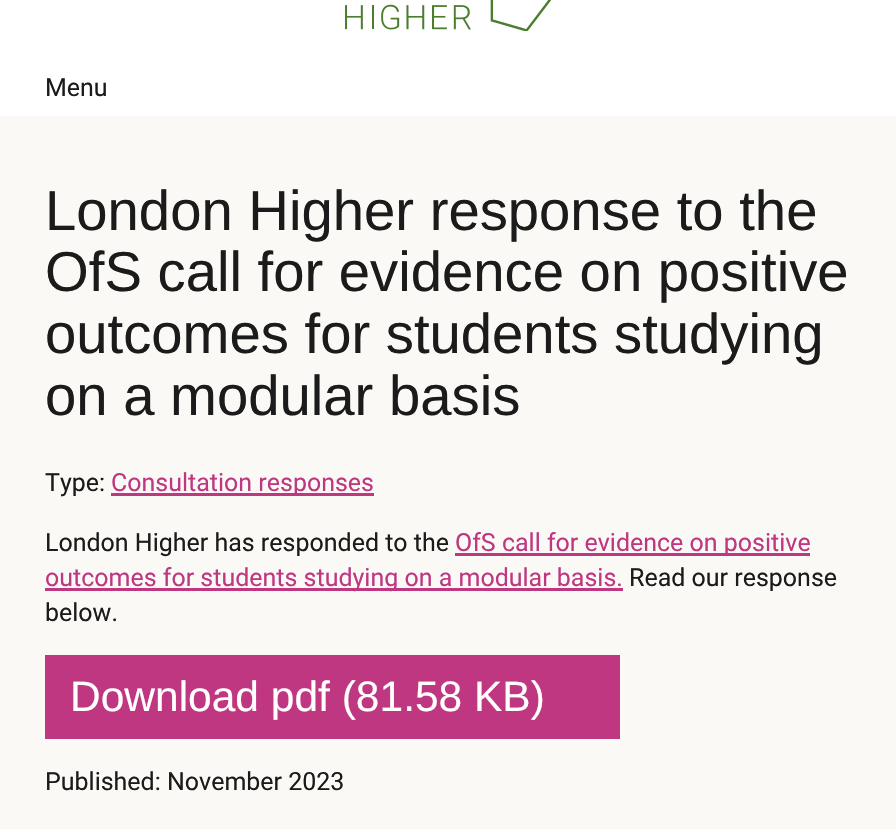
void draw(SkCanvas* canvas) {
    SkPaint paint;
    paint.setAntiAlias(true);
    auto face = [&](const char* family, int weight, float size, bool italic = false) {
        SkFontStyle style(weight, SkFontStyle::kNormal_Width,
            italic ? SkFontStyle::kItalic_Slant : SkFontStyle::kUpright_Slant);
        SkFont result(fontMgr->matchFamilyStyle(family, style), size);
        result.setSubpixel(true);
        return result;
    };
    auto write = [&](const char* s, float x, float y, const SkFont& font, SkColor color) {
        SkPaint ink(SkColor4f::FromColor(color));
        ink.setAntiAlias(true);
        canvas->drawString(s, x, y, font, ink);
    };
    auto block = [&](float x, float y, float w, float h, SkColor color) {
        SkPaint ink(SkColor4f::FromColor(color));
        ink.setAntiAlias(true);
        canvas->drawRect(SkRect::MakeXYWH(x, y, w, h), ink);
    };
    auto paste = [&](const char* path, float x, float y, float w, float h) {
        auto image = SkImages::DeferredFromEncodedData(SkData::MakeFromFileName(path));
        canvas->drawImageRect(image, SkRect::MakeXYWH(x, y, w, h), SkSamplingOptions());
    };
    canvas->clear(SkColorSetRGB(250, 249, 245));
    block(0, 0, 896, 116, SK_ColorWHITE);
    paste("pic1.png", 345, 0, 206, 31);
    auto kFont1 = face("Roboto", 400, 25);
    write("Menu", 45, 96, kFont1, SkColorSetRGB(27, 27, 27));
    auto kFont2 = face("Liberation Sans", 400, 56.25f);
    write("London Higher response to the", 45, 230, kFont2, SkColorSetRGB(27, 27, 27));
    write("OfS call for evidence on positive", 45, 291, kFont2, SkColorSetRGB(27, 27, 27));
    write("outcomes for students studying", 45, 353, kFont2, SkColorSetRGB(27, 27, 27));
    write("on a modular basis", 45, 415, kFont2, SkColorSetRGB(27, 27, 27));
    write("Type:", 45, 491, kFont1, SkColorSetRGB(27, 27, 27));
    block(111, 493, 263, 3, SkColorSetRGB(191, 54, 129));
    write("Consultation responses", 111, 491, kFont1, SkColorSetRGB(191, 54, 129));
    write("London Higher has responded to the", 45, 551, kFont1, SkColorSetRGB(27, 27, 27));
    block(455, 553, 355, 3, SkColorSetRGB(191, 54, 129));
    write("OfS call for evidence on positive", 455, 551, kFont1, SkColorSetRGB(191, 54, 129));
    block(45, 588, 578, 3, SkColorSetRGB(191, 54, 129));
    write("outcomes for students studying on a modular basis.", 45, 586, kFont1, SkColorSetRGB(191, 54, 129));
    write("Read our response", 629, 586, kFont1, SkColorSetRGB(27, 27, 27));
    write("below.", 45, 621, kFont1, SkColorSetRGB(27, 27, 27));
    block(45, 655, 575, 84, SkColorSetRGB(191, 54, 129));
    auto kFont3 = face("Liberation Sans", 400, 42.5f);
    write("Download pdf (81.58 KB)", 70, 711, kFont3, SK_ColorWHITE);
    write("Published: November 2023", 45, 790, kFont1, SkColorSetRGB(27, 27, 27));
}
